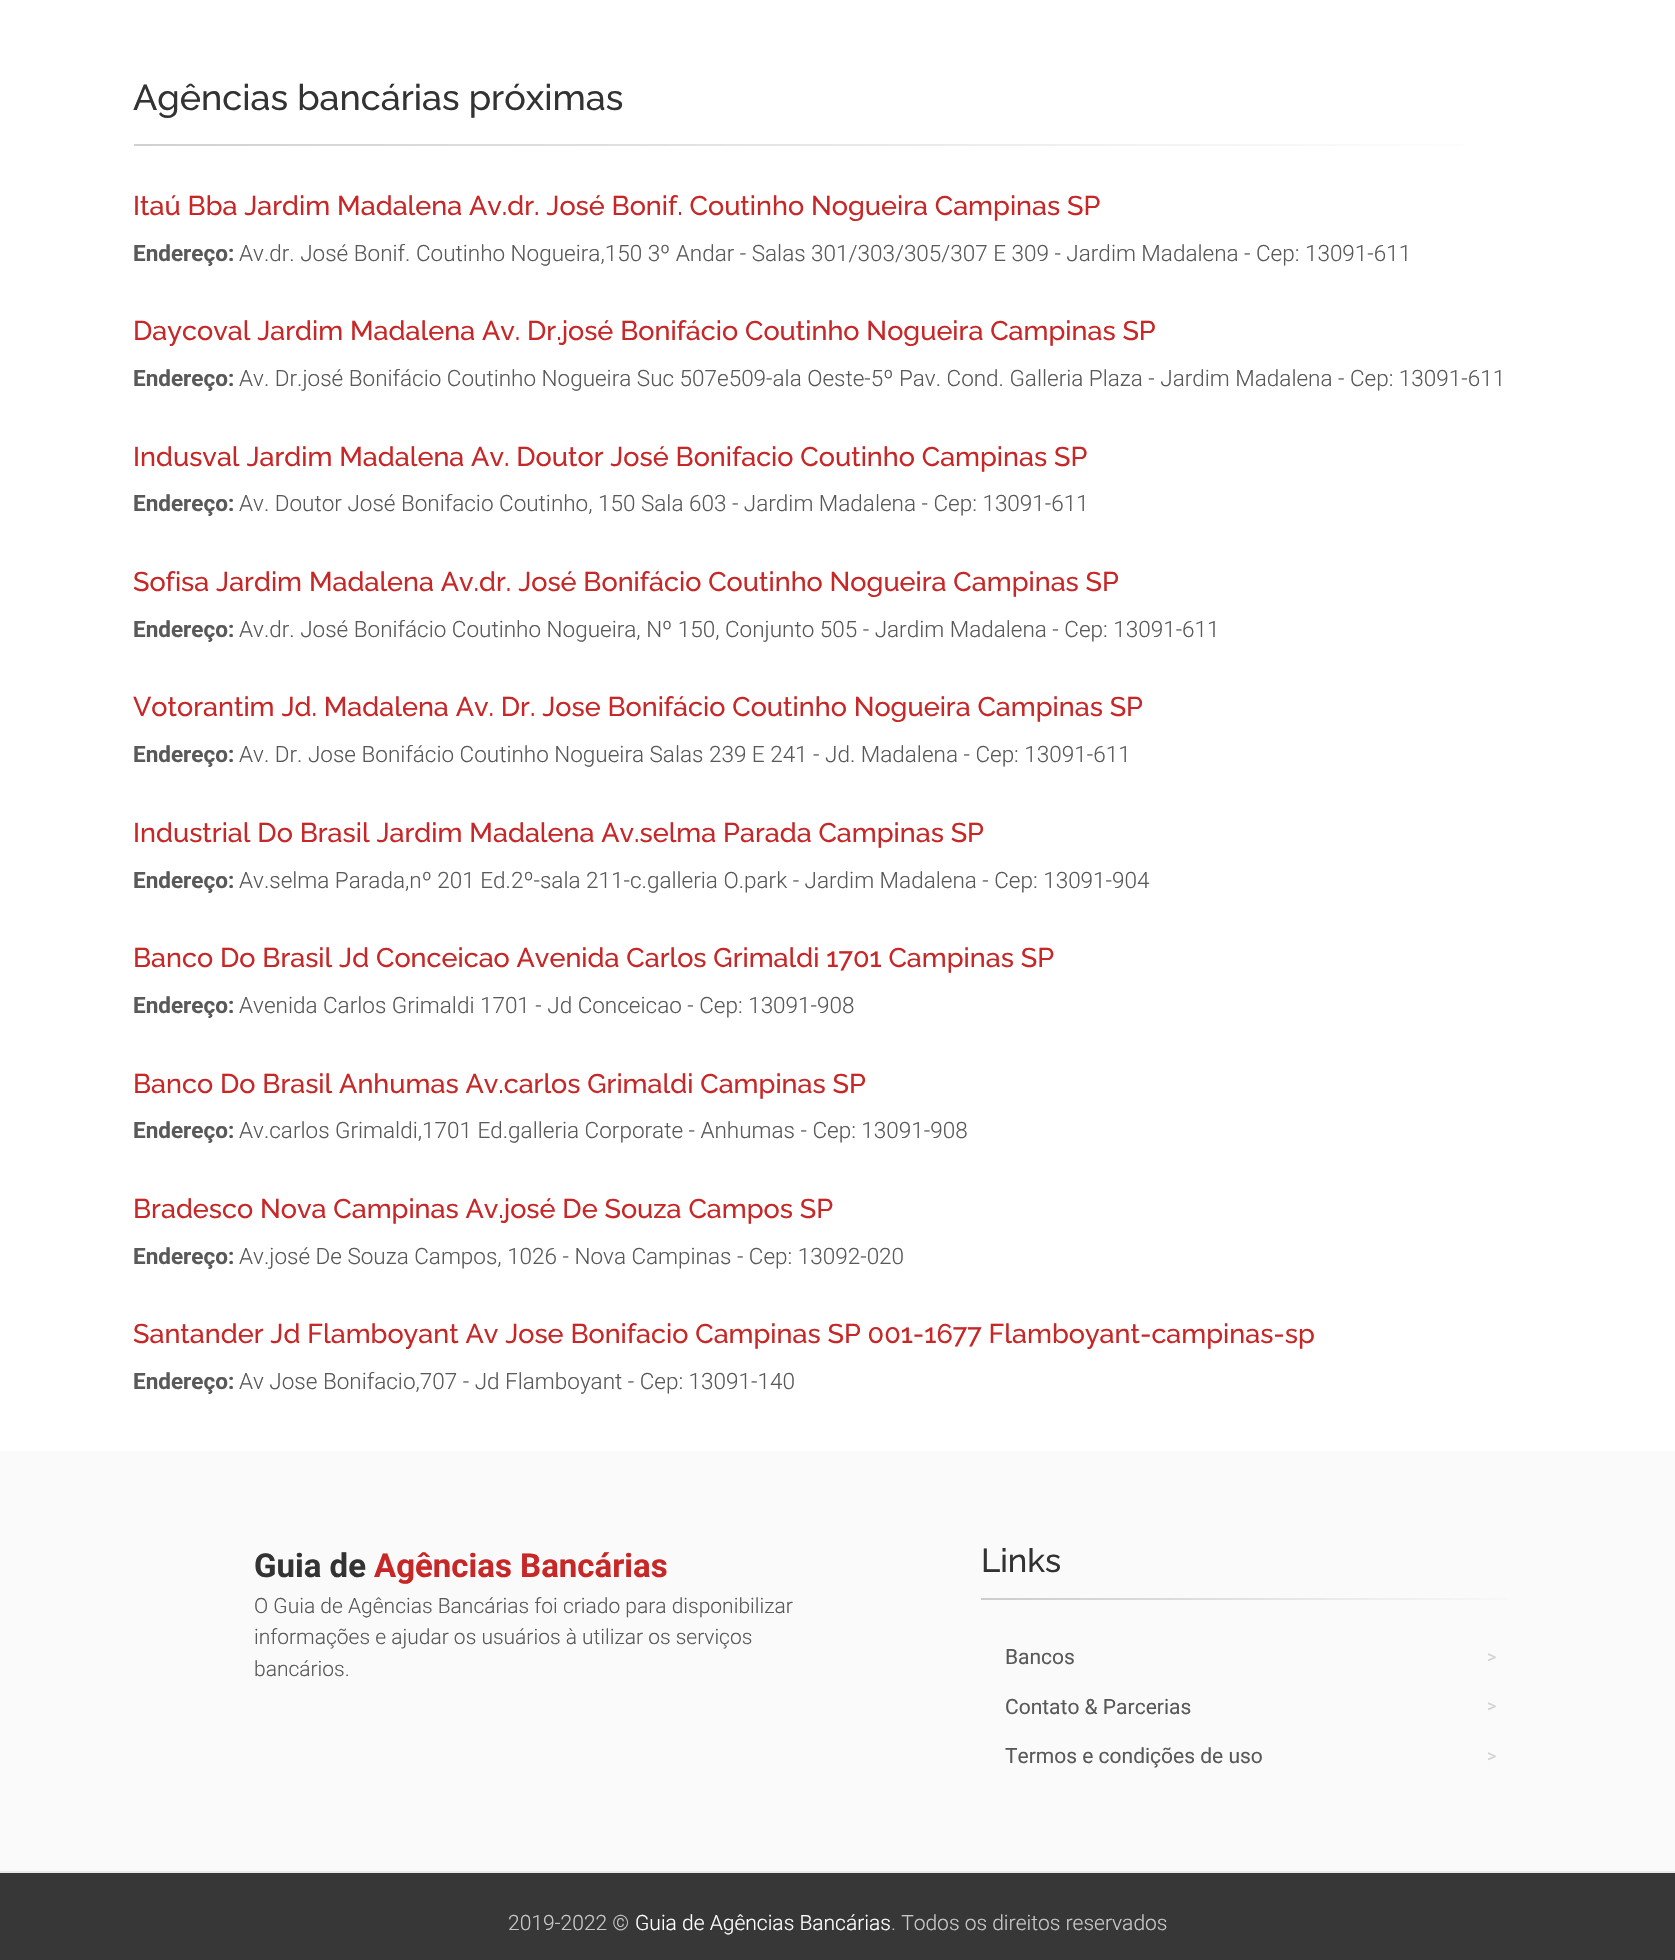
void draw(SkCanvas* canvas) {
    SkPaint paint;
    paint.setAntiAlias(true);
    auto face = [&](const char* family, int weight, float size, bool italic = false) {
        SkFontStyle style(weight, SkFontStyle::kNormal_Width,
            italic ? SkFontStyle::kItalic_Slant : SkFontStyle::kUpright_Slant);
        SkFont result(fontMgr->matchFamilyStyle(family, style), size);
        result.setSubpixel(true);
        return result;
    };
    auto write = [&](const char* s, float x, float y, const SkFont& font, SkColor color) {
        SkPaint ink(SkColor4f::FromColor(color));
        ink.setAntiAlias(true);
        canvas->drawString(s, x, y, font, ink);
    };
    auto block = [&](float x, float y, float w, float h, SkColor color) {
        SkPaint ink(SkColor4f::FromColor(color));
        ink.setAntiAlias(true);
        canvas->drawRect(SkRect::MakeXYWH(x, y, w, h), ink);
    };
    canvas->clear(SK_ColorWHITE);
    auto kFont1 = face("Raleway", 500, 36);
    write("Agências bancárias próximas", 133, 110, kFont1, SkColorSetRGB(51, 51, 51));
    {
        const SkColor colors[] = {SkColorSetRGB(209, 209, 209), SkColorSetRGB(224, 224, 224), SkColorSetRGB(242, 242, 242), SK_ColorWHITE};
        const float stops[] = {0, 0.35f, 0.7f, 1};
        const SkPoint ends[] = {{134, 145}, {1544, 145}};
        paint.setShader(SkGradientShader::MakeLinear(ends, colors, stops, 4, SkTileMode::kClamp));
        paint.setAlpha(255);
    }
    canvas->drawRect(SkRect::MakeXYWH(134, 144, 1329, 2), paint);
    auto kFont2 = face("Raleway", 500, 27);
    write("Itaú Bba Jardim Madalena Av.dr. José Bonif. Coutinho Nogueira Campinas SP", 133, 215, kFont2, SkColorSetRGB(200, 39, 39));
    auto kFont3 = face("Roboto", 700, 22.5f);
    write("Endereço:", 133, 261, kFont3, SkColorSetRGB(89, 89, 89));
    auto kFont4 = face("Roboto", 300, 22.5f);
    write("Av.dr. José Bonif. Coutinho Nogueira,150 3º Andar - Salas 301/303/305/307 E 309 - Jardim Madalena - Cep: 13091-611", 239, 261, kFont4, SkColorSetRGB(89, 89, 89));
    write("Daycoval Jardim Madalena Av. Dr.josé Bonifácio Coutinho Nogueira Campinas SP", 133, 340, kFont2, SkColorSetRGB(200, 39, 39));
    write("Endereço:", 133, 386, kFont3, SkColorSetRGB(89, 89, 89));
    write("Av. Dr.josé Bonifácio Coutinho Nogueira Suc 507e509-ala Oeste-5º Pav. Cond. Galleria Plaza - Jardim Madalena - Cep: 13091-611", 239, 386, kFont4, SkColorSetRGB(89, 89, 89));
    write("Indusval Jardim Madalena Av. Doutor José Bonifacio Coutinho Campinas SP", 133, 466, kFont2, SkColorSetRGB(200, 39, 39));
    write("Endereço:", 133, 511, kFont3, SkColorSetRGB(89, 89, 89));
    write("Av. Doutor José Bonifacio Coutinho, 150 Sala 603 - Jardim Madalena - Cep: 13091-611", 239, 511, kFont4, SkColorSetRGB(89, 89, 89));
    write("Sofisa Jardim Madalena Av.dr. José Bonifácio Coutinho Nogueira Campinas SP", 133, 591, kFont2, SkColorSetRGB(200, 39, 39));
    write("Endereço:", 133, 637, kFont3, SkColorSetRGB(89, 89, 89));
    write("Av.dr. José Bonifácio Coutinho Nogueira, Nº 150, Conjunto 505 - Jardim Madalena - Cep: 13091-611", 239, 637, kFont4, SkColorSetRGB(89, 89, 89));
    write("Votorantim Jd. Madalena Av. Dr. Jose Bonifácio Coutinho Nogueira Campinas SP", 133, 716, kFont2, SkColorSetRGB(200, 39, 39));
    write("Endereço:", 133, 762, kFont3, SkColorSetRGB(89, 89, 89));
    write("Av. Dr. Jose Bonifácio Coutinho Nogueira Salas 239 E 241 - Jd. Madalena - Cep: 13091-611", 239, 762, kFont4, SkColorSetRGB(89, 89, 89));
    write("Industrial Do Brasil Jardim Madalena Av.selma Parada Campinas SP", 133, 842, kFont2, SkColorSetRGB(200, 39, 39));
    write("Endereço:", 133, 888, kFont3, SkColorSetRGB(89, 89, 89));
    write("Av.selma Parada,nº 201 Ed.2º-sala 211-c.galleria O.park - Jardim Madalena - Cep: 13091-904", 239, 888, kFont4, SkColorSetRGB(89, 89, 89));
    write("Banco Do Brasil Jd Conceicao Avenida Carlos Grimaldi 1701 Campinas SP", 133, 967, kFont2, SkColorSetRGB(200, 39, 39));
    write("Endereço:", 133, 1013, kFont3, SkColorSetRGB(89, 89, 89));
    write("Avenida Carlos Grimaldi 1701 - Jd Conceicao - Cep: 13091-908", 239, 1013, kFont4, SkColorSetRGB(89, 89, 89));
    write("Banco Do Brasil Anhumas Av.carlos Grimaldi Campinas SP", 133, 1093, kFont2, SkColorSetRGB(200, 39, 39));
    write("Endereço:", 133, 1138, kFont3, SkColorSetRGB(89, 89, 89));
    write("Av.carlos Grimaldi,1701 Ed.galleria Corporate - Anhumas - Cep: 13091-908", 239, 1138, kFont4, SkColorSetRGB(89, 89, 89));
    write("Bradesco Nova Campinas Av.josé De Souza Campos SP", 133, 1218, kFont2, SkColorSetRGB(200, 39, 39));
    write("Endereço:", 133, 1264, kFont3, SkColorSetRGB(89, 89, 89));
    write("Av.josé De Souza Campos, 1026 - Nova Campinas - Cep: 13092-020", 239, 1264, kFont4, SkColorSetRGB(89, 89, 89));
    write("Santander Jd Flamboyant Av Jose Bonifacio Campinas SP 001-1677 Flamboyant-campinas-sp", 133, 1343, kFont2, SkColorSetRGB(200, 39, 39));
    write("Endereço:", 133, 1389, kFont3, SkColorSetRGB(89, 89, 89));
    write("Av Jose Bonifacio,707 - Jd Flamboyant - Cep: 13091-140", 239, 1389, kFont4, SkColorSetRGB(89, 89, 89));
    block(0, 1451, 1675, 420, SkColorSetRGB(250, 250, 250));
    auto kFont5 = face("Roboto", 700, 33);
    write("Guia de", 254, 1577, kFont5, SkColorSetRGB(51, 51, 51));
    write("Agências Bancárias", 374, 1577, kFont5, SkColorSetRGB(200, 39, 39));
    auto kFont6 = face("Roboto", 300, 21);
    write("O Guia de Agências Bancárias foi criado para disponibilizar", 254, 1613, kFont6, SkColorSetRGB(89, 89, 89));
    write("informações e ajudar os usuários à utilizar os serviços", 254, 1644, kFont6, SkColorSetRGB(89, 89, 89));
    write("bancários.", 254, 1676, kFont6, SkColorSetRGB(89, 89, 89));
    auto kFont7 = face("Raleway", 500, 33);
    write("Links", 981, 1572, kFont7, SkColorSetRGB(51, 51, 51));
    {
        const SkColor colors[] = {SkColorSetRGB(205, 205, 205), SkColorSetRGB(220, 220, 220), SkColorSetRGB(238, 238, 238), SkColorSetRGB(250, 250, 250)};
        const float stops[] = {0, 0.35f, 0.7f, 1};
        const SkPoint ends[] = {{981, 1598}, {1542, 1598}};
        paint.setShader(SkGradientShader::MakeLinear(ends, colors, stops, 4, SkTileMode::kClamp));
        paint.setAlpha(255);
    }
    canvas->drawRect(SkRect::MakeXYWH(981, 1598, 526, 2), paint);
    auto kFont8 = face("Roboto", 400, 21);
    write("Bancos", 1005, 1664, kFont8, SkColorSetRGB(89, 89, 89));
    auto kFont9 = face("Roboto", 400, 18);
    write(">", 1487, 1663, kFont9, SkColorSetRGB(209, 209, 209));
    write("Contato & Parcerias", 1005, 1714, kFont8, SkColorSetRGB(89, 89, 89));
    write(">", 1487, 1712, kFont9, SkColorSetRGB(209, 209, 209));
    write("Termos e condições de uso", 1005, 1763, kFont8, SkColorSetRGB(89, 89, 89));
    write(">", 1487, 1762, kFont9, SkColorSetRGB(209, 209, 209));
    block(0, 1873, 1675, 87, SkColorSetRGB(55, 55, 55));
    block(0, 1871, 1675, 2, SkColorSetRGB(234, 234, 234));
    write("2019-2022 ©", 508, 1930, kFont6, SkColorSetRGB(199, 199, 199));
    write("Guia de Agências Bancárias", 635, 1930, kFont6, SK_ColorWHITE);
    write(". Todos os direitos reservados", 891, 1930, kFont6, SkColorSetRGB(199, 199, 199));
}
